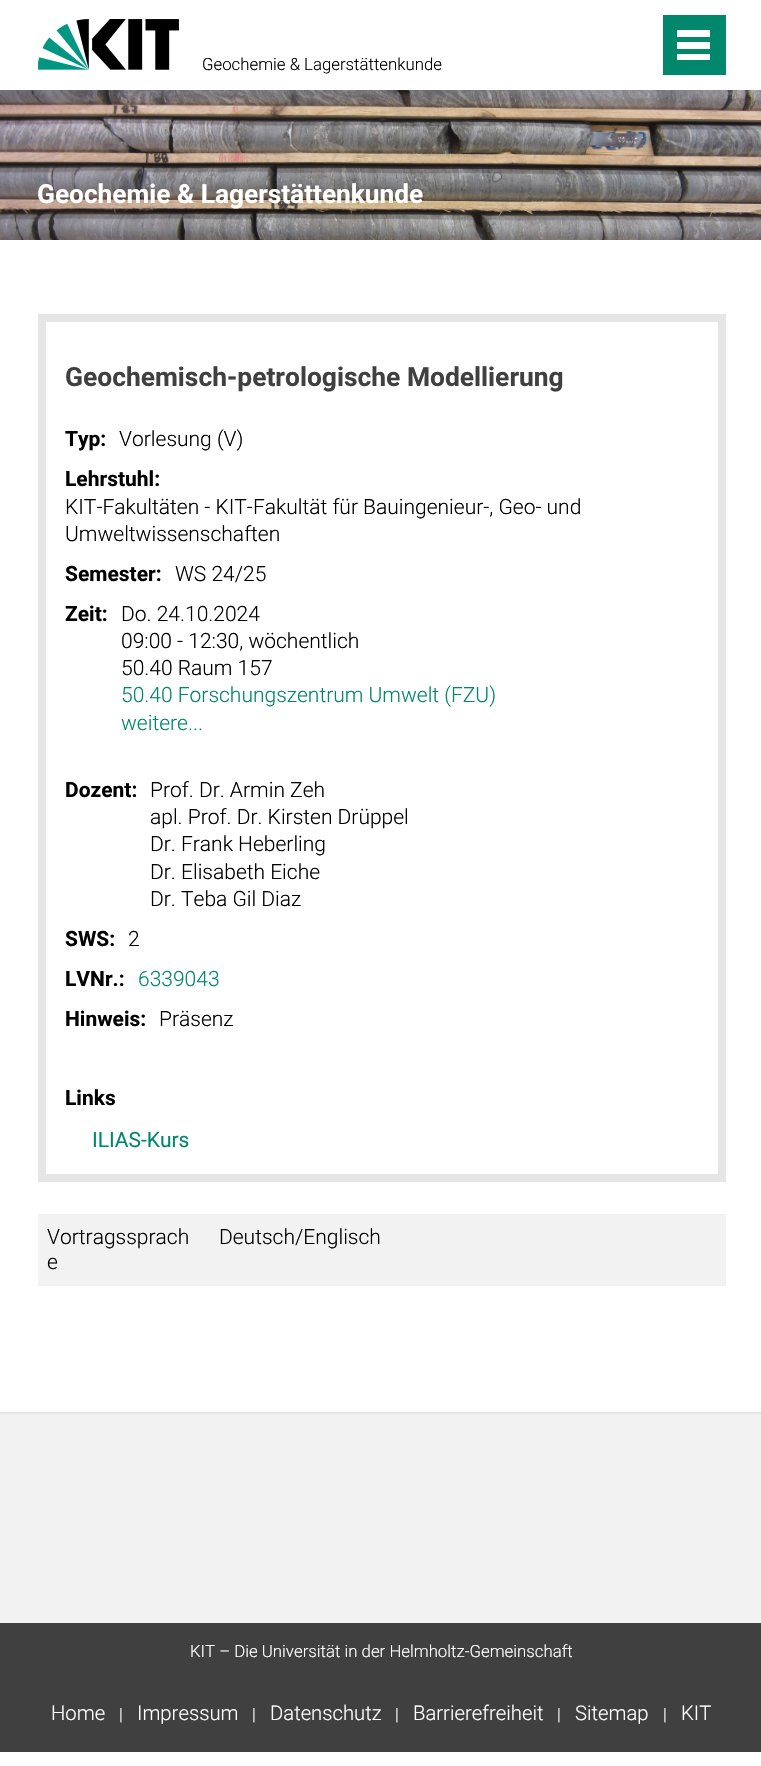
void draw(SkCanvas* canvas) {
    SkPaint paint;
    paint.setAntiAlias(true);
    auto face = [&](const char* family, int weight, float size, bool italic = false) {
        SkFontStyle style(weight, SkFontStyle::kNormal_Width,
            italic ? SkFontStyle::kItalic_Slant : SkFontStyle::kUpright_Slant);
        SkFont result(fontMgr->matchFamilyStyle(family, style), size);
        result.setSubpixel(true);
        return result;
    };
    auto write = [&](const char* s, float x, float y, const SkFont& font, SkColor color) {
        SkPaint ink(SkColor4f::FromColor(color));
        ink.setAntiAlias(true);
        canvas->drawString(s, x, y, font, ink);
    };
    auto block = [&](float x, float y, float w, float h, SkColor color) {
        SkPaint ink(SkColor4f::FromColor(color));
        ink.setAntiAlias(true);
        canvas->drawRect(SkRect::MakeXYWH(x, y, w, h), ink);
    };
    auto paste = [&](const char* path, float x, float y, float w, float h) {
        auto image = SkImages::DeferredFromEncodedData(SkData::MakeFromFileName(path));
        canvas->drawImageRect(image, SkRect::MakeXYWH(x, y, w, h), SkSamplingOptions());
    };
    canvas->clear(SK_ColorWHITE);
    paste("pic2.png", 0, 90, 761, 150);
    canvas->save();
    canvas->clipRect(SkRect::MakeXYWH(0, 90, 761, 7));
    paint.setColor(SkColorSetARGB(128, 64, 64, 64));
    paint.setMaskFilter(SkMaskFilter::MakeBlur(kNormal_SkBlurStyle, 4));
    canvas->drawRect(SkRect::MakeXYWH(0, 0, 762, 90), paint);
    paint.setMaskFilter(nullptr);
    canvas->restore();
    paste("pic1.png", 38, 19, 141, 51);
    auto kFont1 = face("Roboto", 300, 16.8f);
    write("Geochemie & Lagerstättenkunde", 202, 70, kFont1, SK_ColorBLACK);
    block(663, 15, 63, 60, SkColorSetRGB(0, 135, 108));
    block(677, 54, 33, 6, SK_ColorWHITE);
    block(677, 42, 33, 7, SK_ColorWHITE);
    block(677, 30, 33, 7, SK_ColorWHITE);
    auto kFont2 = face("Roboto", 700, 26.25f);
    write("Geochemie & Lagerstättenkunde", 37, 203, kFont2, SK_ColorWHITE);
    paint.setStyle(SkPaint::kStroke_Style);
    paint.setStrokeWidth(8);
    paint.setColor(SkColorSetRGB(230, 230, 230));
    canvas->drawRect(SkRect::MakeXYWH(42, 318, 680, 860), paint);
    auto kFont3 = face("Roboto", 700, 26.4f);
    write("Geochemisch-petrologische Modellierung", 65, 386, kFont3, SkColorSetRGB(64, 64, 64));
    auto kFont4 = face("Roboto", 700, 21);
    write("Typ:", 65, 446, kFont4, SK_ColorBLACK);
    auto kFont5 = face("Roboto", 300, 21);
    write("Vorlesung (V)", 119, 446, kFont5, SK_ColorBLACK);
    write("Lehrstuhl:", 65, 486, kFont4, SK_ColorBLACK);
    write("KIT-Fakultäten - KIT-Fakultät für Bauingenieur-, Geo- und", 65, 514, kFont5, SK_ColorBLACK);
    write("Umweltwissenschaften", 65, 541, kFont5, SK_ColorBLACK);
    write("Semester:", 65, 581, kFont4, SK_ColorBLACK);
    write("WS 24/25", 175, 581, kFont5, SK_ColorBLACK);
    write("Zeit:", 65, 621, kFont4, SK_ColorBLACK);
    write("Do. 24.10.2024", 121, 621, kFont5, SK_ColorBLACK);
    write("09:00 - 12:30, wöchentlich", 121, 648, kFont5, SK_ColorBLACK);
    write("50.40 Raum 157", 121, 675, kFont5, SK_ColorBLACK);
    write("50.40 Forschungszentrum Umwelt (FZU)", 121, 702, kFont5, SkColorSetRGB(0, 135, 108));
    write("weitere...", 121, 730, kFont5, SkColorSetRGB(0, 135, 108));
    write("Dozent:", 65, 797, kFont4, SK_ColorBLACK);
    write("Prof. Dr. Armin Zeh", 150, 797, kFont5, SK_ColorBLACK);
    write("apl. Prof. Dr. Kirsten Drüppel", 150, 824, kFont5, SK_ColorBLACK);
    write("Dr. Frank Heberling", 150, 851, kFont5, SK_ColorBLACK);
    write("Dr. Elisabeth Eiche", 150, 879, kFont5, SK_ColorBLACK);
    write("Dr. Teba Gil Diaz", 150, 906, kFont5, SK_ColorBLACK);
    write("SWS:", 65, 946, kFont4, SK_ColorBLACK);
    write("2", 128, 946, kFont5, SK_ColorBLACK);
    write("LVNr.:", 65, 986, kFont4, SK_ColorBLACK);
    write("6339043", 138, 986, kFont5, SkColorSetRGB(0, 135, 108));
    write("Hinweis:", 65, 1026, kFont4, SK_ColorBLACK);
    write("Präsenz", 159, 1026, kFont5, SK_ColorBLACK);
    write("Links", 65, 1105, kFont4, SK_ColorBLACK);
    auto kFont6 = face("Roboto", 400, 21);
    write("ILIAS-Kurs", 92, 1147, kFont6, SkColorSetRGB(0, 135, 108));
    block(38, 1214, 688, 72, SkColorSetRGB(242, 242, 242));
    write("Vortragssprach", 47, 1244, kFont5, SK_ColorBLACK);
    write("e", 47, 1269, kFont5, SK_ColorBLACK);
    write("Deutsch/Englisch", 219, 1244, kFont5, SK_ColorBLACK);
    block(0, 1414, 761, 209, SkColorSetRGB(242, 242, 242));
    block(0, 1412, 761, 2, SkColorSetRGB(230, 230, 230));
    block(0, 1623, 761, 129, SkColorSetRGB(64, 64, 64));
    write("KIT – Die Universität in der Helmholtz-Gemeinschaft", 190, 1657, kFont1, SK_ColorWHITE);
    auto kFont7 = face("Roboto", 300, 20.25f);
    write("Home", 51, 1720, kFont7, SK_ColorWHITE);
    write("|", 119, 1720, kFont1, SK_ColorWHITE);
    write("Impressum", 137, 1720, kFont7, SK_ColorWHITE);
    write("|", 252, 1720, kFont1, SK_ColorWHITE);
    write("Datenschutz", 270, 1720, kFont7, SK_ColorWHITE);
    write("|", 395, 1720, kFont1, SK_ColorWHITE);
    write("Barrierefreiheit", 413, 1720, kFont7, SK_ColorWHITE);
    write("|", 557, 1720, kFont1, SK_ColorWHITE);
    write("Sitemap", 575, 1720, kFont7, SK_ColorWHITE);
    write("|", 663, 1720, kFont1, SK_ColorWHITE);
    write("KIT", 681, 1720, kFont7, SK_ColorWHITE);
}
